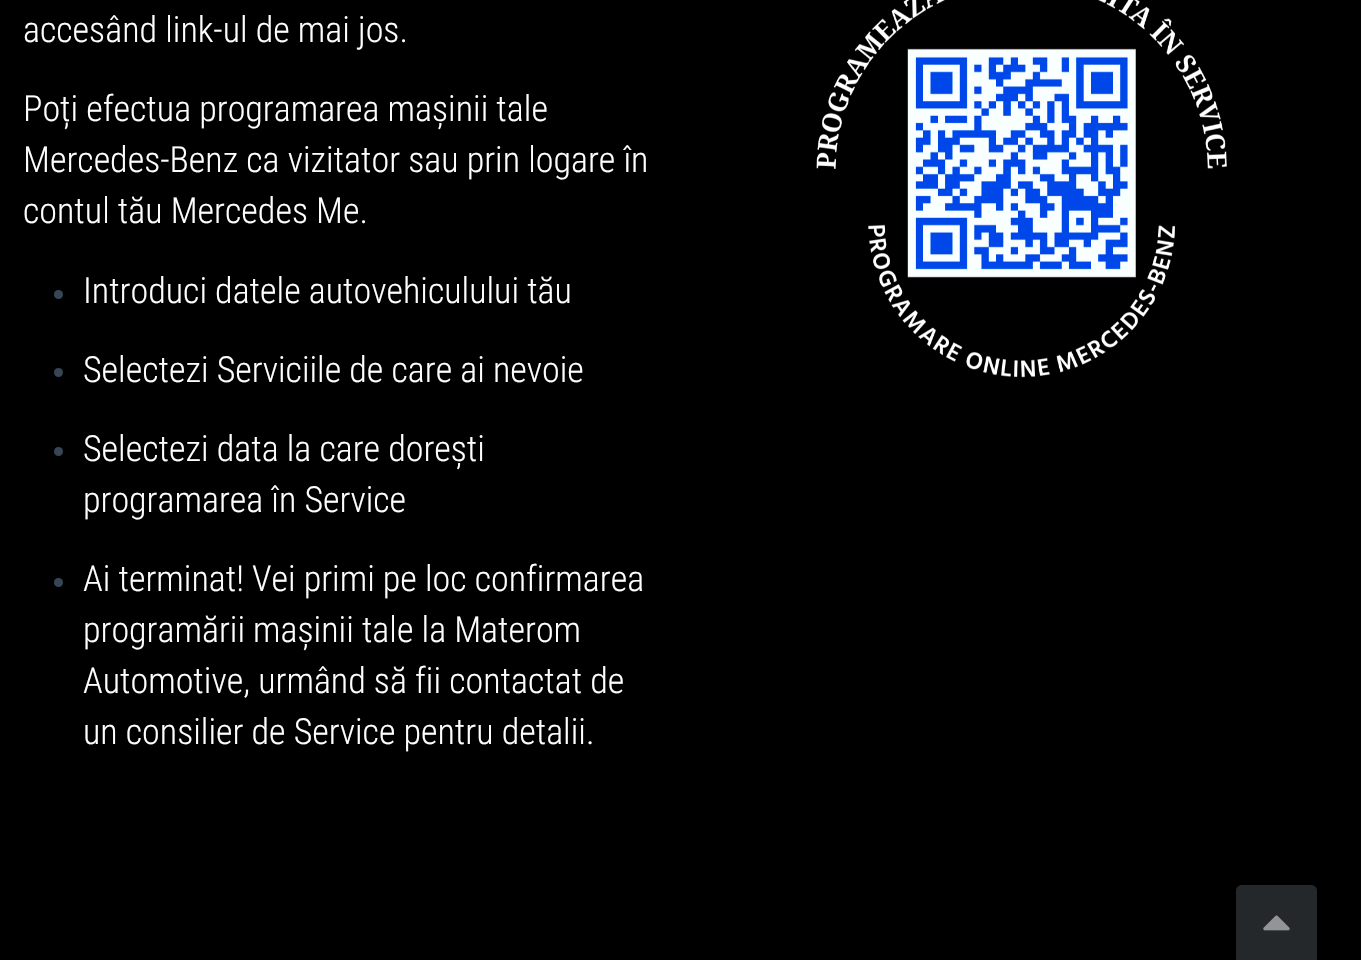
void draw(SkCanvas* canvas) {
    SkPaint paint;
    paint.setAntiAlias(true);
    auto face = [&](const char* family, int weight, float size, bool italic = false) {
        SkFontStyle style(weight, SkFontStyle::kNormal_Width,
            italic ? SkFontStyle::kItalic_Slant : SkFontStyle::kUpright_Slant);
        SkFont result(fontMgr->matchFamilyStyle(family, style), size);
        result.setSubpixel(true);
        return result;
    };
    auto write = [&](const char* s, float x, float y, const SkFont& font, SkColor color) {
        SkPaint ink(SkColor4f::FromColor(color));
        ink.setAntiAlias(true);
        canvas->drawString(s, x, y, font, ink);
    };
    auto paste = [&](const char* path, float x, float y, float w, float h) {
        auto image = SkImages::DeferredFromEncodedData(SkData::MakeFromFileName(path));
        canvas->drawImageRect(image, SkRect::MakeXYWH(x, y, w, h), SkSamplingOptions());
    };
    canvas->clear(SK_ColorBLACK);
    auto kFont1 = face("Roboto Condensed", 300, 36);
    write("accesând link-ul de mai jos.", 23, 42, kFont1, SK_ColorWHITE);
    write("Poți efectua programarea mașinii tale", 23, 121, kFont1, SK_ColorWHITE);
    write("Mercedes-Benz ca vizitator sau prin logare în", 23, 172, kFont1, SK_ColorWHITE);
    write("contul tău Mercedes Me.", 23, 223, kFont1, SK_ColorWHITE);
    paint.setColor(SkColorSetRGB(56, 69, 84));
    canvas->drawCircle(58.5f, 294.5f, 4.5f, paint);
    write("Introduci datele autovehiculului tău", 83, 303, kFont1, SK_ColorWHITE);
    canvas->drawCircle(58.5f, 372.5f, 4.5f, paint);
    write("Selectezi Serviciile de care ai nevoie", 83, 382, kFont1, SK_ColorWHITE);
    canvas->drawCircle(58.5f, 451.5f, 4.5f, paint);
    write("Selectezi data la care dorești", 83, 461, kFont1, SK_ColorWHITE);
    write("programarea în Service", 83, 512, kFont1, SK_ColorWHITE);
    canvas->drawCircle(58.5f, 582.5f, 4.5f, paint);
    write("Ai terminat! Vei primi pe loc confirmarea", 83, 591, kFont1, SK_ColorWHITE);
    write("programării mașinii tale la Materom", 83, 642, kFont1, SK_ColorWHITE);
    write("Automotive, urmând să fii contactat de", 83, 693, kFont1, SK_ColorWHITE);
    write("un consilier de Service pentru detalii.", 83, 744, kFont1, SK_ColorWHITE);
    paste("pic1.png", 816, 0, 411, 378);
    paint.setColor(SkColorSetRGB(37, 40, 43));
    canvas->drawPath(SkPathBuilder().moveTo(1242, 885).lineTo(1311, 885).cubicTo(1314.5f, 885, 1317, 887.5f, 1317, 891).lineTo(1317, 960).lineTo(1236, 960).lineTo(1236, 891).cubicTo(1236, 887.5f, 1238.5f, 885, 1242, 885).close().detach(), paint);
    paste("pic2.png", 1263, 915, 27, 16);
}
